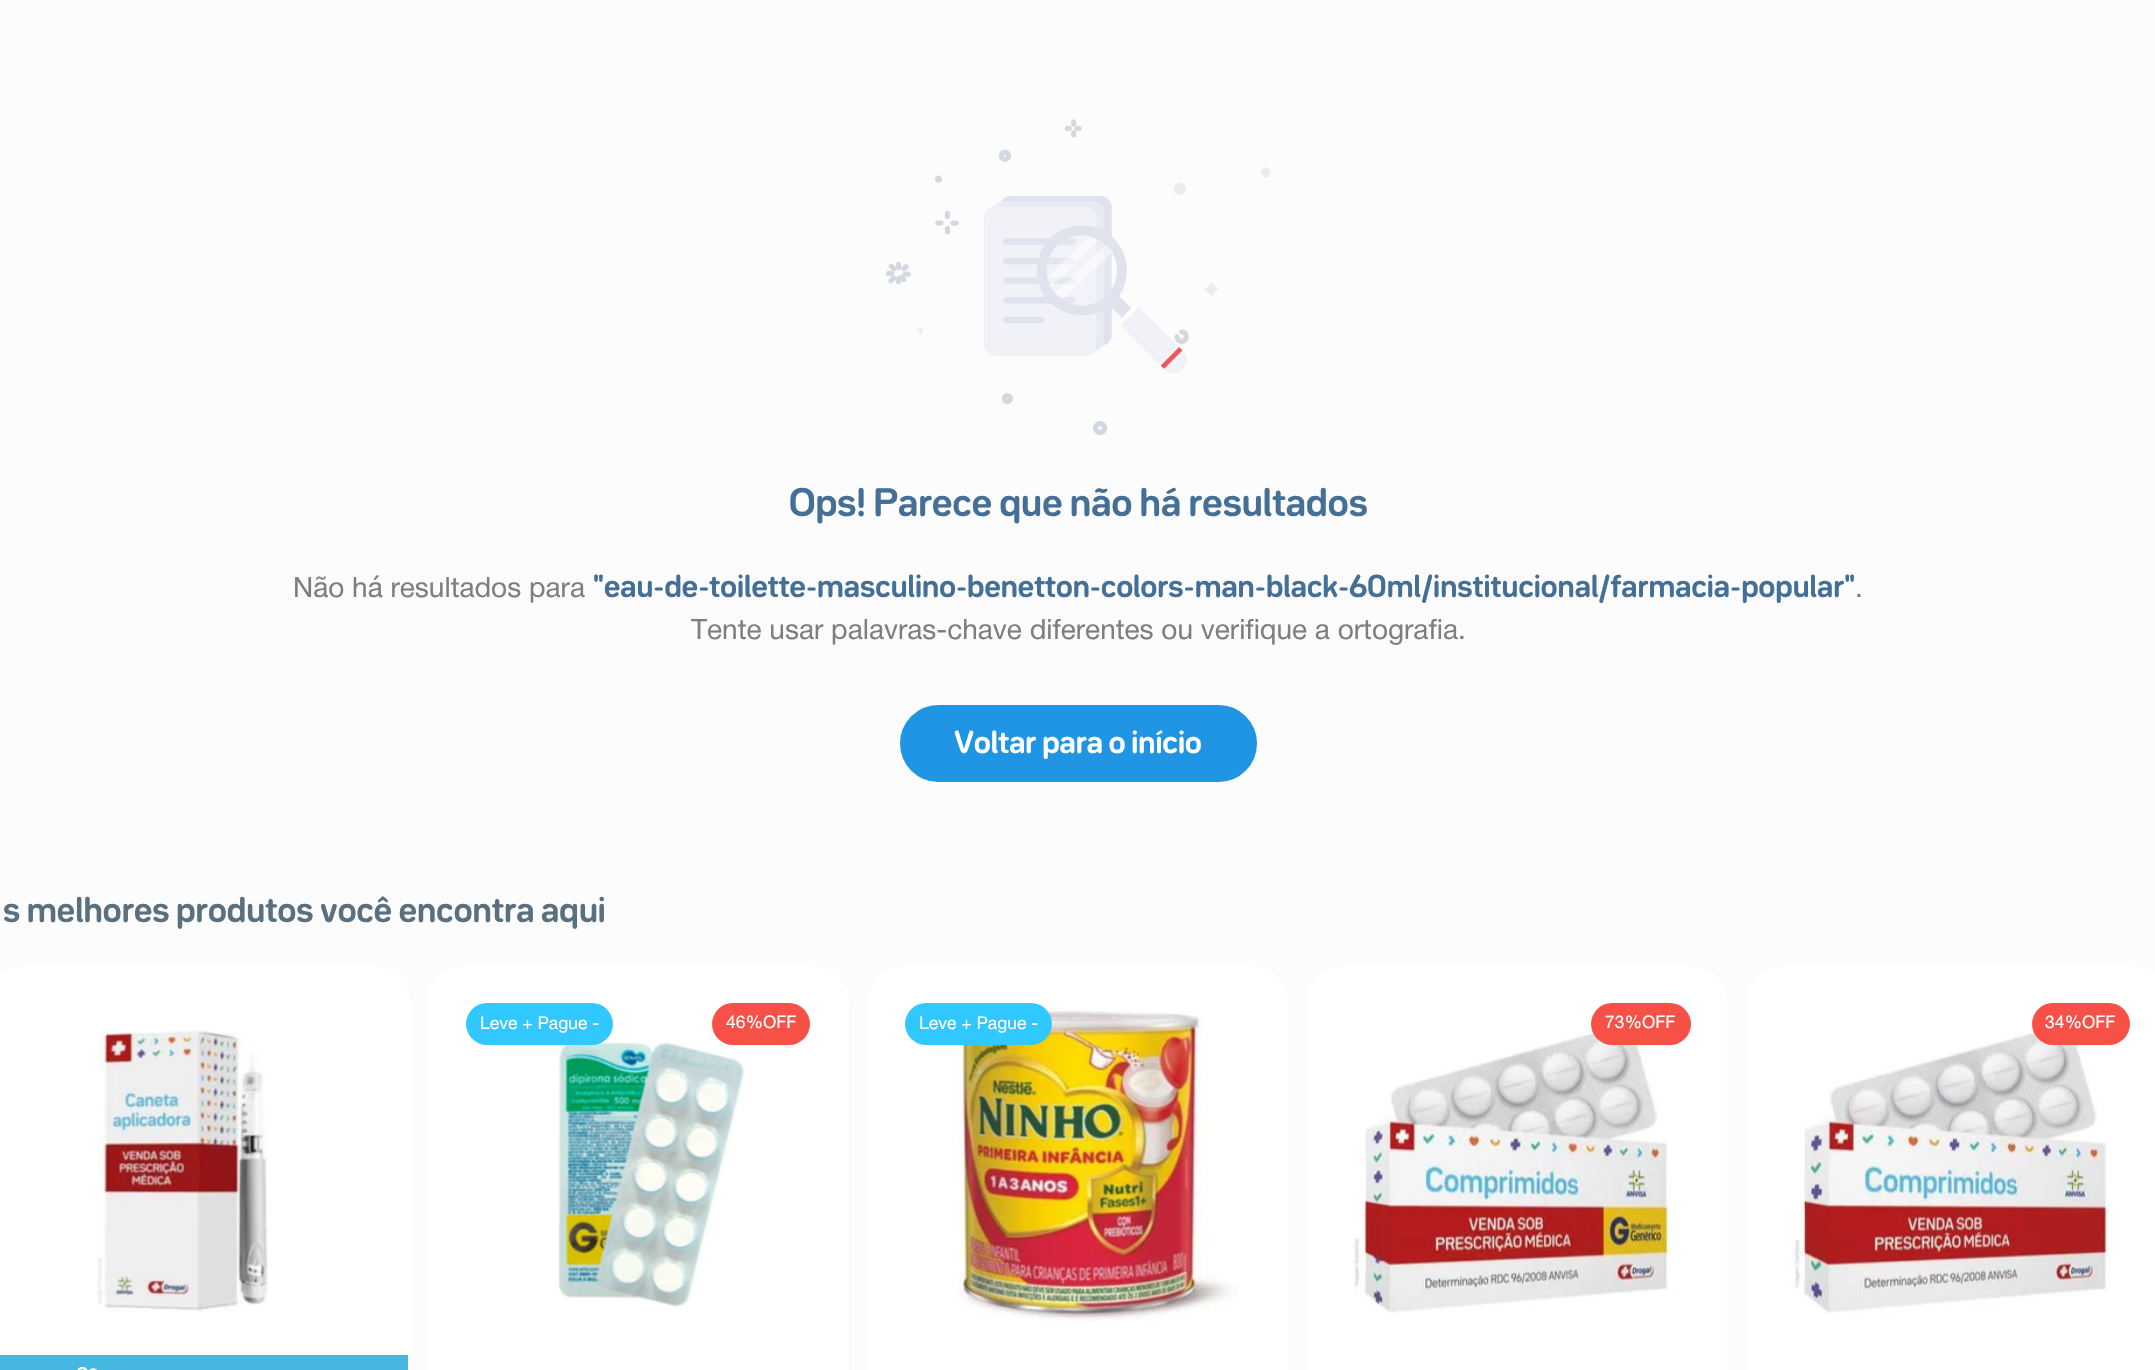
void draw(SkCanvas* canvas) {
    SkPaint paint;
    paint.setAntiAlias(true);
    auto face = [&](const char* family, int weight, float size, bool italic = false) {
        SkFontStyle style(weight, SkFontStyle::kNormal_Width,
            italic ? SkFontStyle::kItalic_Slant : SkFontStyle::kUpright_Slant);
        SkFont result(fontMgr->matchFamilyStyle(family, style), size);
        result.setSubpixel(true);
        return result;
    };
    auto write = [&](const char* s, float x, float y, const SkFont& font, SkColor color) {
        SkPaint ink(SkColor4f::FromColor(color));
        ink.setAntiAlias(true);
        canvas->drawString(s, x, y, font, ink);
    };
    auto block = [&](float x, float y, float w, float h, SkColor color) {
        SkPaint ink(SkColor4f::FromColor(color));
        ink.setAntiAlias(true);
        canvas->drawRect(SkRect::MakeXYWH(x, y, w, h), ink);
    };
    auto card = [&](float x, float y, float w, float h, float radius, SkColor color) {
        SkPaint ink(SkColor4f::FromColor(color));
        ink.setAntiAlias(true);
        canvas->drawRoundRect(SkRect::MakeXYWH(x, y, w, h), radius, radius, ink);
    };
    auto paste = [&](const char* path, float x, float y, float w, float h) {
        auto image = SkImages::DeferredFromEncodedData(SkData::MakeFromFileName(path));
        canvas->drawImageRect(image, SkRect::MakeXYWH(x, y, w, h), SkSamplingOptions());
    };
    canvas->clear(SkColorSetRGB(252, 252, 252));
    paste("pic1.png", 886, 119, 385, 317);
    auto kFont1 = face("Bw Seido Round", 700, 35);
    write("Ops! Parece que não há resultados", 789, 516, kFont1, SkColorSetRGB(68, 112, 151));
    auto kFont2 = face("Helvetica Neue", 400, 28);
    write("Não há resultados para", 293, 597, kFont2, SkColorSetRGB(126, 126, 126));
    auto kFont3 = face("Bw Seido Round", 700, 28);
    write("\"eau-de-toilette-masculino-benetton-colors-man-black-60ml/institucional/farmacia-popular\"", 593, 597, kFont3, SkColorSetRGB(68, 112, 151));
    write(".", 1855, 597, kFont2, SkColorSetRGB(126, 126, 126));
    write("Tente usar palavras-chave diferentes ou verifique a ortografia.", 691, 639, kFont2, SkColorSetRGB(126, 126, 126));
    paint.setColor(SkColorSetRGB(31, 149, 227));
    canvas->drawRoundRect(SkRect::MakeXYWH(902, 707, 353, 73), 36.5f, 36.5f, paint);
    paint.setStyle(SkPaint::kStroke_Style);
    paint.setStrokeWidth(4);
    canvas->drawRoundRect(SkRect::MakeXYWH(902, 707, 353, 73), 36.5f, 36.5f, paint);
    write("Voltar para o início", 954, 753, kFont3, SK_ColorWHITE);
    auto kFont4 = face("Bw Seido Round", 700, 31.5f);
    write("s melhores produtos você encontra aqui", 3, 922, kFont4, SkColorSetRGB(90, 112, 127));
    card(-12, 966, 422, 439, 35, SK_ColorWHITE);
    paste("pic2.png", 97, 1030, 171, 282);
    block(0, 1355, 408, 15, SkColorSetRGB(70, 183, 224));
    paste("pic3.png", 77, 1367, 20, 3);
    card(427, 966, 422, 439, 35, SK_ColorWHITE);
    paste("pic4.png", 558, 1042, 187, 265);
    card(466, 1003, 147, 42, 21, SkColorSetRGB(49, 200, 255));
    auto kFont5 = face("Helvetica Neue", 400, 17.5f);
    write("Leve + Pague -", 480, 1029, kFont5, SK_ColorWHITE);
    card(712, 1003, 98, 42, 21, SkColorSetRGB(247, 80, 71));
    write("46%OFF", 726, 1028, kFont5, SK_ColorWHITE);
    card(868, 966, 420, 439, 35, SK_ColorWHITE);
    paste("pic5.png", 958, 1010, 280, 312);
    card(905, 1003, 147, 42, 21, SkColorSetRGB(49, 200, 255));
    write("Leve + Pague -", 919, 1029, kFont5, SK_ColorWHITE);
    card(1307, 966, 420, 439, 35, SK_ColorWHITE);
    paste("pic6.png", 1353, 1024, 325, 289);
    card(1591, 1003, 100, 42, 21, SkColorSetRGB(247, 80, 71));
    write("73%OFF", 1605, 1028, kFont5, SK_ColorWHITE);
    card(1747, 966, 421, 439, 35, SK_ColorWHITE);
    paste("pic7.png", 1791, 1025, 319, 289);
    card(2032, 1003, 98, 42, 21, SkColorSetRGB(247, 80, 71));
    write("34%OFF", 2045, 1028, kFont5, SK_ColorWHITE);
}
